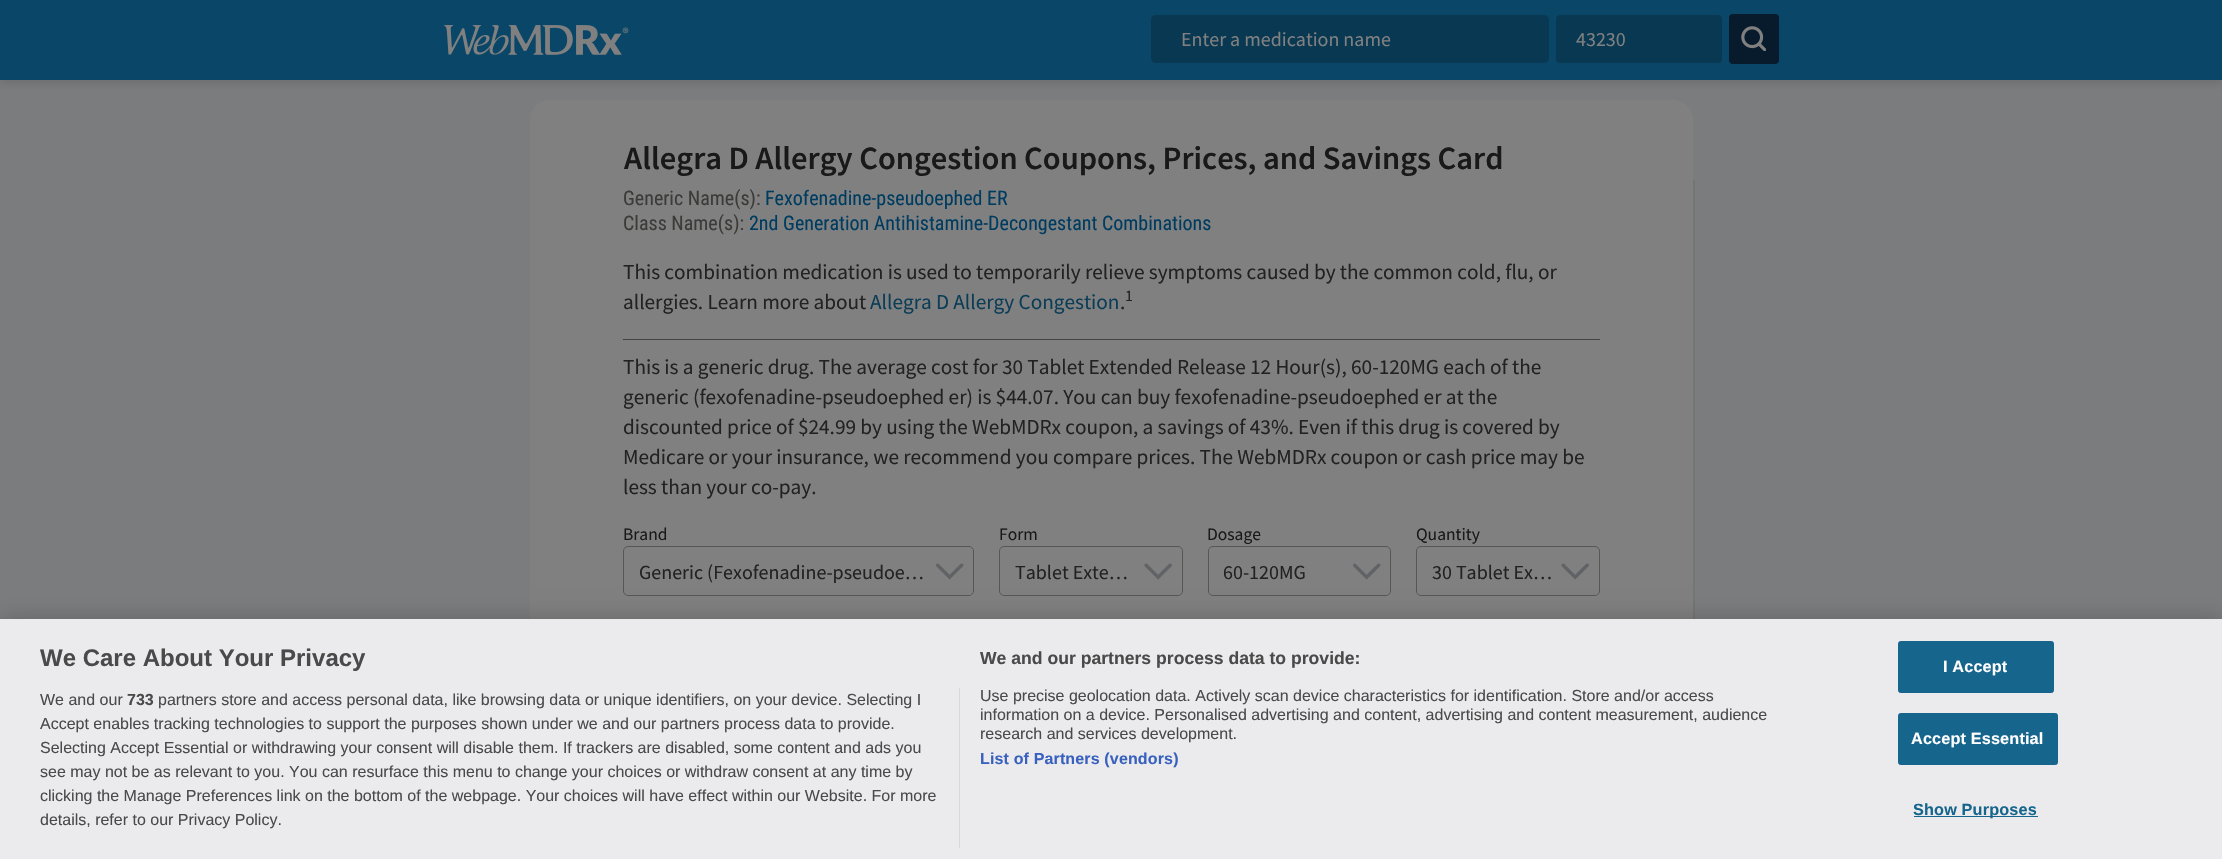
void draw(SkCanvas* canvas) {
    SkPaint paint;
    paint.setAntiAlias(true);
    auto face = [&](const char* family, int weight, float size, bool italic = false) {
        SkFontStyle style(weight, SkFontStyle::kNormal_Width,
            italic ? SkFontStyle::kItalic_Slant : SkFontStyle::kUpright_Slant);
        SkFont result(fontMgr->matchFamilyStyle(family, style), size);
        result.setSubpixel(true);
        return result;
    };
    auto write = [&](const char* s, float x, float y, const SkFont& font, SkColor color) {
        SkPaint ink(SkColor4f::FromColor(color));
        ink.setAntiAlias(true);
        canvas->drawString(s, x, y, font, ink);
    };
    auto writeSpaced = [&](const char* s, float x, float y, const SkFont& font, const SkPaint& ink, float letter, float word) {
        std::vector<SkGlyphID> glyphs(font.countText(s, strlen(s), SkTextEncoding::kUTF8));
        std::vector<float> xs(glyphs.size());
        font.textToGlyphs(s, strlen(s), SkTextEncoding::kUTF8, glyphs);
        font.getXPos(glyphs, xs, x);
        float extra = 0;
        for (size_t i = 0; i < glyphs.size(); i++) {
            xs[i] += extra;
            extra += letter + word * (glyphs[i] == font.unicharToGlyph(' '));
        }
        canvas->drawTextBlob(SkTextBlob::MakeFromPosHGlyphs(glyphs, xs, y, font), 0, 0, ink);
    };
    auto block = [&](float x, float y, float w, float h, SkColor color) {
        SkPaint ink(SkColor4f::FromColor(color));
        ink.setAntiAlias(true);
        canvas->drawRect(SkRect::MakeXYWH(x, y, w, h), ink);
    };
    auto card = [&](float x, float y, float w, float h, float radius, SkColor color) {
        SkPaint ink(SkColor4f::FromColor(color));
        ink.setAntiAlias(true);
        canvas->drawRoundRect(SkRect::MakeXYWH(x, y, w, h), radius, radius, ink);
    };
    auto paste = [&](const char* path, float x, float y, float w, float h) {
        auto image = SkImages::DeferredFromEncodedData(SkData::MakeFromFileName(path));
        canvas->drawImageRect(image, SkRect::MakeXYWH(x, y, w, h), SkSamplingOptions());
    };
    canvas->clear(SkColorSetRGB(123, 124, 125));
    paint.setColor(SkColorSetARGB(26, 0, 0, 0));
    paint.setMaskFilter(SkMaskFilter::MakeBlur(kNormal_SkBlurStyle, 4));
    canvas->drawRect(SkRect::MakeXYWH(0, 4, 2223, 80), paint);
    paint.setMaskFilter(nullptr);
    block(0, 0, 2222, 80, SkColorSetRGB(10, 70, 103));
    paste("pic1.png", 444, 25, 185, 30);
    paint.setColor(SkColorSetRGB(8, 56, 82));
    canvas->drawRoundRect(SkRect::MakeXYWH(1150.5f, 14.5f, 399, 49), 5.5f, 5.5f, paint);
    paint.setStyle(SkPaint::kStroke_Style);
    paint.setStrokeWidth(1);
    paint.setColor(SkColorSetRGB(10, 70, 103));
    canvas->drawRoundRect(SkRect::MakeXYWH(1150.5f, 14.5f, 399, 49), 5.5f, 5.5f, paint);
    auto kFont1 = face("Source Sans Pro", 400, 20);
    write("Enter a medication name", 1181, 46, kFont1, SkColorSetRGB(128, 128, 128));
    paint.setStyle(SkPaint::kFill_Style);
    paint.setColor(SkColorSetRGB(8, 56, 82));
    canvas->drawRoundRect(SkRect::MakeXYWH(1555.5f, 14.5f, 167, 49), 4.5f, 4.5f, paint);
    paint.setStyle(SkPaint::kStroke_Style);
    paint.setColor(SkColorSetRGB(10, 70, 103));
    canvas->drawRoundRect(SkRect::MakeXYWH(1555.5f, 14.5f, 167, 49), 4.5f, 4.5f, paint);
    write("43230", 1576, 46, kFont1, SkColorSetRGB(128, 128, 128));
    card(1729, 14, 50, 50, 4, SkColorSetRGB(7, 27, 45));
    paste("pic2.png", 1741, 26, 25, 25);
    paint.setStyle(SkPaint::kFill_Style);
    paint.setColor(SkColorSetRGB(128, 128, 128));
    canvas->drawPath(SkPathBuilder().moveTo(550, 100).lineTo(1673, 100).cubicTo(1684, 100, 1693, 109, 1693, 120).lineTo(1693, 180).lineTo(530, 180).lineTo(530, 120).cubicTo(530, 109, 539, 100, 550, 100).close().detach(), paint);
    auto kFont2 = face("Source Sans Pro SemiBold", 600, 32.5f);
    write("Allegra D Allergy Congestion Coupons, Prices, and Savings Card", 624, 169, kFont2, SkColorSetRGB(26, 25, 25));
    paint.setColor(SkColorSetRGB(116, 117, 118));
    canvas->drawPath(SkPathBuilder().moveTo(1695, 180).lineTo(1692, 180).lineTo(1692, 636).lineTo(530, 636).lineTo(530, 639).lineTo(1695, 639).close().detach(), paint);
    block(530, 180, 1163, 439, SkColorSetRGB(128, 128, 128));
    auto kFont3 = face("Roboto Condensed", 400, 20);
    write("Generic Name(s):", 623, 205, kFont3, SkColorSetRGB(59, 59, 58));
    write("Fexofenadine-pseudoephed ER", 765, 205, kFont3, SkColorSetRGB(0, 60, 96));
    write("Class Name(s):", 623, 230, kFont3, SkColorSetRGB(59, 59, 58));
    write("2nd Generation Antihistamine-Decongestant Combinations", 749, 230, kFont3, SkColorSetRGB(0, 60, 96));
    auto kFont4 = face("Source Sans Pro", 400, 21.25f);
    write("This combination medication is used to temporarily relieve symptoms caused by the common cold, flu, or", 623, 279, kFont4, SkColorSetRGB(34, 34, 34));
    write("allergies. Learn more about", 623, 309, kFont4, SkColorSetRGB(34, 34, 34));
    write("Allegra D Allergy Congestion", 870, 309, kFont4, SkColorSetRGB(12, 61, 86));
    write(".", 1120, 309, kFont4, SkColorSetRGB(34, 34, 34));
    auto kFont5 = face("Source Sans Pro", 400, 16);
    write("1", 1125, 301, kFont5, SkColorSetRGB(34, 34, 34));
    block(623, 339, 977, 1, SkColorSetRGB(66, 66, 66));
    write("This is a generic drug. The average cost for 30 Tablet Extended Release 12 Hour(s), 60-120MG each of the", 623, 374, kFont4, SkColorSetRGB(34, 34, 34));
    write("generic (fexofenadine-pseudoephed er) is $44.07. You can buy fexofenadine-pseudoephed er at the", 623, 404, kFont4, SkColorSetRGB(34, 34, 34));
    write("discounted price of $24.99 by using the WebMDRx coupon, a savings of 43%. Even if this drug is covered by", 623, 434, kFont4, SkColorSetRGB(34, 34, 34));
    write("Medicare or your insurance, we recommend you compare prices. The WebMDRx coupon or cash price may be", 623, 464, kFont4, SkColorSetRGB(34, 34, 34));
    write("less than your co-pay.", 623, 494, kFont4, SkColorSetRGB(34, 34, 34));
    auto kFont6 = face("Source Sans Pro", 400, 17.5f);
    write("Brand", 623, 540, kFont6, SkColorSetRGB(26, 25, 25));
    paint.setStyle(SkPaint::kStroke_Style);
    paint.setColor(SkColorSetRGB(86, 86, 86));
    canvas->drawRoundRect(SkRect::MakeXYWH(623.5f, 546.5f, 350, 49), 4.5f, 4.5f, paint);
    write("Generic (Fexofenadine-pseudoe…", 639, 579, kFont1, SkColorSetRGB(34, 34, 34));
    paste("pic3.png", 935, 563, 29, 17);
    write("Form", 999, 540, kFont6, SkColorSetRGB(26, 25, 25));
    canvas->drawRoundRect(SkRect::MakeXYWH(999.5f, 546.5f, 183, 49), 4.5f, 4.5f, paint);
    write("Tablet Exte…", 1015, 579, kFont1, SkColorSetRGB(34, 34, 34));
    paste("pic4.png", 1144, 563, 28, 17);
    write("Dosage", 1207, 540, kFont6, SkColorSetRGB(26, 25, 25));
    canvas->drawRoundRect(SkRect::MakeXYWH(1208.5f, 546.5f, 182, 49), 4.5f, 4.5f, paint);
    write("60-120MG", 1223, 579, kFont1, SkColorSetRGB(34, 34, 34));
    paste("pic5.png", 1353, 563, 28, 17);
    write("Quantity", 1416, 540, kFont6, SkColorSetRGB(26, 25, 25));
    canvas->drawRoundRect(SkRect::MakeXYWH(1416.5f, 546.5f, 183, 49), 4.5f, 4.5f, paint);
    write("30 Tablet Ex…", 1432, 579, kFont1, SkColorSetRGB(34, 34, 34));
    paste("pic6.png", 1561, 563, 28, 17);
    paint.setStyle(SkPaint::kFill_Style);
    paint.setColor(SkColorSetARGB(51, 0, 0, 0));
    paint.setMaskFilter(SkMaskFilter::MakeBlur(kNormal_SkBlurStyle, 11));
    canvas->drawRect(SkRect::MakeXYWH(0, 619, 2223, 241), paint);
    paint.setMaskFilter(nullptr);
    block(0, 619, 2222, 240, SkColorSetRGB(235, 235, 237));
    auto kFont7 = face("Liberation Sans", 700, 24);
    write("We Care About Your Privacy", 40, 666, kFont7, SkColorSetRGB(74, 74, 74));
    auto kFont8 = face("Liberation Sans", 700, 17.6f);
    write("We and our partners process data to provide:", 980, 664, kFont8, SkColorSetRGB(74, 74, 74));
    auto kFont9 = face("Liberation Sans", 400, 16);
    write("Use precise geolocation data. Actively scan device characteristics for identification. Store and/or access", 980, 701, kFont9, SkColorSetRGB(74, 74, 74));
    write("information on a device. Personalised advertising and content, advertising and content measurement, audience", 980, 720, kFont9, SkColorSetRGB(74, 74, 74));
    write("research and services development.", 980, 739, kFont9, SkColorSetRGB(74, 74, 74));
    auto kFont10 = face("Liberation Sans", 700, 16);
    paint.setColor(SkColorSetRGB(56, 96, 190));
    writeSpaced("List of Partners (vendors)", 980, 764, kFont10, paint, 0.15f, 0);
    block(959, 688, 1, 160, SkColorSetRGB(216, 216, 216));
    write("We and our", 40, 705, kFont9, SkColorSetRGB(74, 74, 74));
    write("733", 127, 705, kFont10, SkColorSetRGB(74, 74, 74));
    write("partners store and access personal data, like browsing data or unique identifiers, on your device. Selecting I", 158, 705, kFont9, SkColorSetRGB(74, 74, 74));
    write("Accept enables tracking technologies to support the purposes shown under we and our partners process data to provide.", 40, 729, kFont9, SkColorSetRGB(74, 74, 74));
    write("Selecting Accept Essential or withdrawing your consent will disable them. If trackers are disabled, some content and ads you", 40, 753, kFont9, SkColorSetRGB(74, 74, 74));
    write("see may not be as relevant to you. You can resurface this menu to change your choices or withdraw consent at any time by", 40, 777, kFont9, SkColorSetRGB(74, 74, 74));
    write("clicking the Manage Preferences link on the bottom of the webpage. Your choices will have effect within our Website. For more", 40, 801, kFont9, SkColorSetRGB(74, 74, 74));
    write("details, refer to our Privacy Policy.", 40, 825, kFont9, SkColorSetRGB(74, 74, 74));
    paint.setColor(SkColorSetRGB(22, 101, 141));
    canvas->drawRoundRect(SkRect::MakeXYWH(1898.5f, 641.5f, 155, 51), 2, 2, paint);
    paint.setStyle(SkPaint::kStroke_Style);
    canvas->drawRoundRect(SkRect::MakeXYWH(1898.5f, 641.5f, 155, 51), 2, 2, paint);
    auto kFont11 = face("Liberation Sans", 700, 16.25f);
    paint.setStyle(SkPaint::kFill_Style);
    paint.setColor(SK_ColorWHITE);
    writeSpaced("I Accept", 1943, 672, kFont11, paint, 0.15f, 0);
    paint.setColor(SkColorSetRGB(22, 101, 141));
    canvas->drawRoundRect(SkRect::MakeXYWH(1898.5f, 713.5f, 159, 51), 2, 2, paint);
    paint.setStyle(SkPaint::kStroke_Style);
    canvas->drawRoundRect(SkRect::MakeXYWH(1898.5f, 713.5f, 159, 51), 2, 2, paint);
    paint.setStyle(SkPaint::kFill_Style);
    paint.setColor(SK_ColorWHITE);
    writeSpaced("Accept Essential", 1911, 744, kFont11, paint, 0.15f, 0);
    block(1914, 816, 124, 1, SkColorSetRGB(22, 101, 141));
    paint.setColor(SkColorSetRGB(22, 101, 141));
    writeSpaced("Show Purposes", 1913, 815, kFont11, paint, 0.15f, 0);
}
